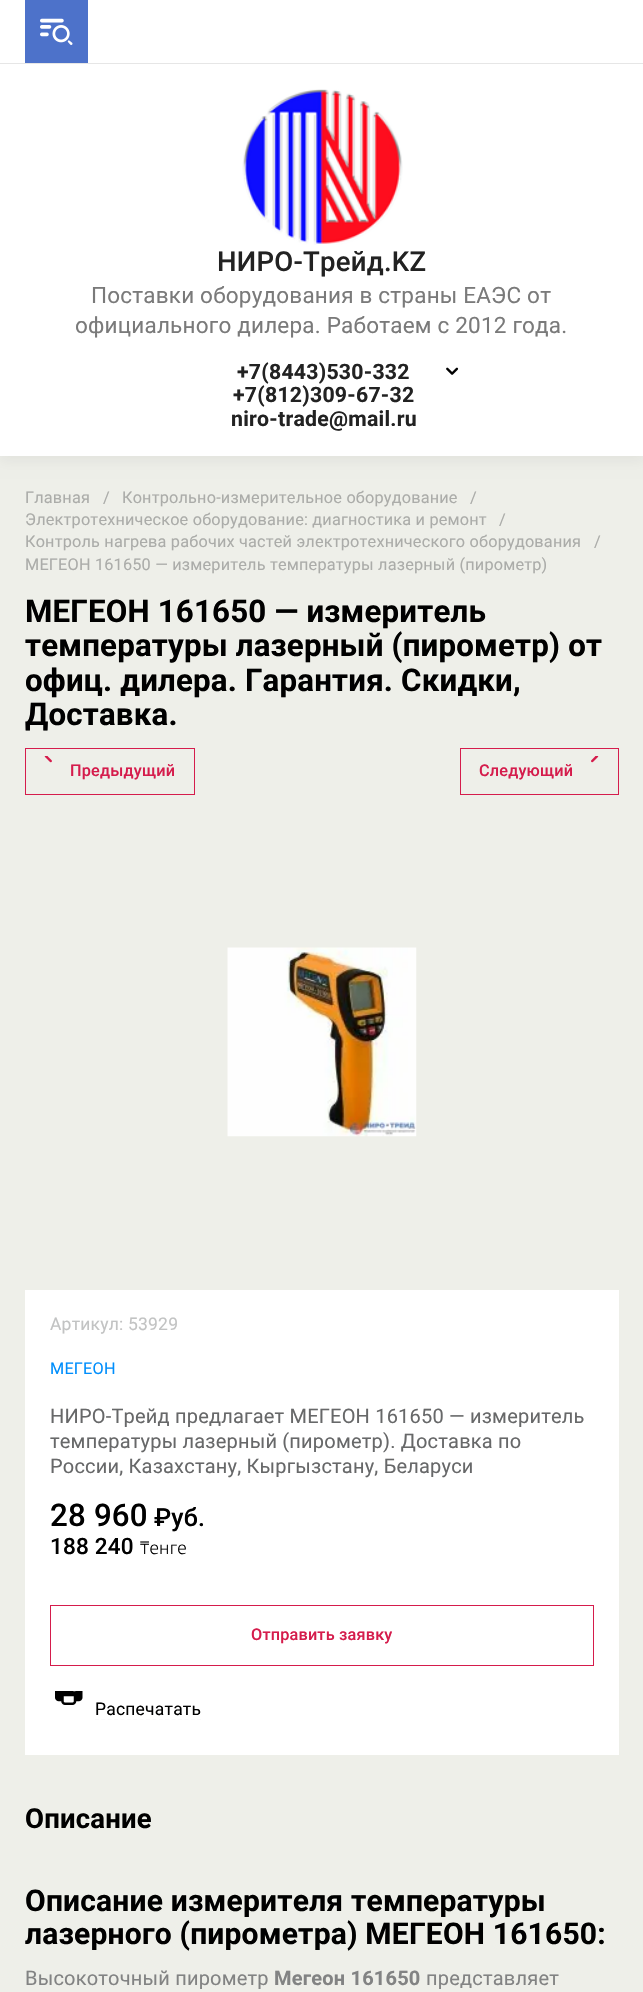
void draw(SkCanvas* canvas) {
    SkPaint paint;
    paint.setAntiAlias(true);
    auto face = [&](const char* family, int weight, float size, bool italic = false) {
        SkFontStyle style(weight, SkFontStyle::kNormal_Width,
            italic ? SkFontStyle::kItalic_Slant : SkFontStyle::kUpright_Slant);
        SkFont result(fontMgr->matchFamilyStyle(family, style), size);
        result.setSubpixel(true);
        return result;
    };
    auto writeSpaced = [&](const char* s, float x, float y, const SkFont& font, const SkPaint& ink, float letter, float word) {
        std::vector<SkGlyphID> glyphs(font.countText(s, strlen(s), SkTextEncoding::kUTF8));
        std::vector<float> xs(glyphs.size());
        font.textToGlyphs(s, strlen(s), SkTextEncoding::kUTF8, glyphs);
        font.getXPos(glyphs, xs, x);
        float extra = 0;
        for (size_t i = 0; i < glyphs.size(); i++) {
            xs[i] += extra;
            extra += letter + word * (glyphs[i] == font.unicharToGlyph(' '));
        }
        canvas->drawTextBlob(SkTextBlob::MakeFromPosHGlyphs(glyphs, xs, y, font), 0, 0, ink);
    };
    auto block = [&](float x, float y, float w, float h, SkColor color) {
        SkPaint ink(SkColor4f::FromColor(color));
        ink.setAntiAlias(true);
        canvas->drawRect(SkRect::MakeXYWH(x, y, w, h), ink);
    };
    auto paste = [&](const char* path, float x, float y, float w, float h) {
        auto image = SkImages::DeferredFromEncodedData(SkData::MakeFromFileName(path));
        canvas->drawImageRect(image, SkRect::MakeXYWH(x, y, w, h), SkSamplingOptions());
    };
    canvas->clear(SkColorSetRGB(238, 239, 233));
    paint.setColor(SkColorSetARGB(13, 0, 0, 0));
    paint.setMaskFilter(SkMaskFilter::MakeBlur(kNormal_SkBlurStyle, 6));
    canvas->drawRect(SkRect::MakeXYWH(0, 5, 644, 456), paint);
    paint.setMaskFilter(nullptr);
    block(0, 0, 643, 456, SK_ColorWHITE);
    block(25, 0, 63, 63, SkColorSetRGB(77, 114, 202));
    paste("pic1.png", 40, 18, 33, 27);
    block(0, 63, 643, 1, SkColorSetRGB(230, 230, 230));
    paste("pic2.png", 242, 89, 161, 156);
    auto kFont1 = face("Roboto", 500, 27.5f);
    paint.setColor(SkColorSetRGB(34, 34, 34));
    writeSpaced("НИРО-Трейд.KZ", 217, 271, kFont1, paint, 0.25f, 0);
    auto kFont2 = face("Roboto", 400, 22.5f);
    paint.setColor(SkColorSetRGB(122, 122, 122));
    writeSpaced("Поставки оборудования в страны ЕАЭС от", 91, 303, kFont2, paint, 0.2f, 0);
    writeSpaced("официального дилера. Работаем с 2012 года.", 75, 333, kFont2, paint, 0.2f, 0);
    auto kFont3 = face("Roboto", 700, 21.25f);
    paint.setColor(SkColorSetRGB(34, 34, 34));
    writeSpaced("+7(8443)530-332", 237, 379, kFont3, paint, 0.25f, 0);
    writeSpaced("+7(812)309-67-32", 233, 402, kFont3, paint, 0.25f, 0);
    writeSpaced("niro-trade@mail.ru", 231, 426, kFont3, paint, 0.25f, 0);
    paste("pic3.png", 446, 367, 13, 8);
    auto kFont4 = face("Roboto", 400, 16.25f);
    paint.setColor(SkColorSetRGB(171, 172, 169));
    writeSpaced("Главная", 25, 503, kFont4, paint, 0.2f, 0);
    writeSpaced("/", 103, 503, kFont4, paint, 0.2f, 0);
    writeSpaced("Контрольно-измерительное оборудование", 122, 503, kFont4, paint, 0.2f, 0);
    writeSpaced("/", 470, 503, kFont4, paint, 0.2f, 0);
    writeSpaced("Электротехническое оборудование: диагностика и ремонт", 25, 525, kFont4, paint, 0.2f, 0);
    writeSpaced("/", 499, 525, kFont4, paint, 0.2f, 0);
    writeSpaced("Контроль нагрева рабочих частей электротехнического оборудования", 25, 547, kFont4, paint, 0.2f, 0);
    writeSpaced("/", 594, 547, kFont4, paint, 0.2f, 0);
    writeSpaced("МЕГЕОН 161650 — измеритель температуры лазерный (пирометр)", 25, 570, kFont4, paint, 0.2f, 0);
    auto kFont5 = face("Roboto", 700, 31.25f);
    paint.setColor(SK_ColorBLACK);
    writeSpaced("МЕГЕОН 161650 — измеритель", 25, 622, kFont5, paint, 0.2f, 0);
    writeSpaced("температуры лазерный (пирометр) от", 25, 656, kFont5, paint, 0.2f, 0);
    writeSpaced("офиц. дилера. Гарантия. Скидки,", 25, 691, kFont5, paint, 0.2f, 0);
    writeSpaced("Доставка.", 25, 725, kFont5, paint, 0.2f, 0);
    paint.setStyle(SkPaint::kStroke_Style);
    paint.setStrokeWidth(1);
    paint.setColor(SkColorSetRGB(213, 28, 76));
    canvas->drawRect(SkRect::MakeXYWH(25.5f, 748.5f, 169, 46), paint);
    paste("pic4.png", 44, 756, 8, 7);
    auto kFont6 = face("Roboto", 500, 16.25f);
    paint.setStyle(SkPaint::kFill_Style);
    writeSpaced("Предыдущий", 70, 776, kFont6, paint, 0.2f, 0);
    paint.setStyle(SkPaint::kStroke_Style);
    canvas->drawRect(SkRect::MakeXYWH(460.5f, 748.5f, 158, 46), paint);
    paste("pic5.png", 591, 756, 8, 7);
    paint.setStyle(SkPaint::kFill_Style);
    writeSpaced("Следующий", 479, 776, kFont6, paint, 0.2f, 0);
    paste("pic6.png", 227, 947, 190, 190);
    block(25, 1290, 594, 465, SK_ColorWHITE);
    auto kFont7 = face("Roboto", 400, 17.5f);
    paint.setColor(SkColorSetRGB(194, 195, 195));
    writeSpaced("Артикул: 53929", 50, 1330, kFont7, paint, 0.2f, 0);
    paint.setColor(SkColorSetRGB(0, 142, 252));
    writeSpaced("МЕГЕОН", 50, 1374, kFont4, paint, 0.2f, 0);
    auto kFont8 = face("Roboto", 400, 20);
    paint.setColor(SkColorSetRGB(103, 104, 105));
    writeSpaced("НИРО-Трейд предлагает МЕГЕОН 161650 — измеритель", 50, 1423, kFont8, paint, 0.2f, 0);
    writeSpaced("температуры лазерный (пирометр). Доставка по", 50, 1448, kFont8, paint, 0.2f, 0);
    writeSpaced("России, Казахстану, Кыргызстану, Беларуси", 50, 1473, kFont8, paint, 0.2f, 0);
    auto kFont9 = face("Roboto", 500, 31.25f);
    paint.setColor(SK_ColorBLACK);
    writeSpaced("28 960", 50, 1526, kFont9, paint, 0.2f, 0);
    auto kFont10 = face("Roboto", 500, 25);
    writeSpaced("₽уб.", 154, 1526, kFont10, paint, 0.2f, 0);
    auto kFont11 = face("Roboto", 500, 22.5f);
    writeSpaced("188 240", 50, 1554, kFont11, paint, 0.2f, 0);
    auto kFont12 = face("Noto Sans", 300, 17.5f);
    writeSpaced("₸енге", 140, 1554, kFont12, paint, 0.2f, 0);
    paint.setStyle(SkPaint::kStroke_Style);
    paint.setColor(SkColorSetRGB(213, 28, 76));
    canvas->drawRect(SkRect::MakeXYWH(50.5f, 1605.5f, 543, 60), paint);
    paint.setStyle(SkPaint::kFill_Style);
    writeSpaced("Отправить заявку", 251, 1640, kFont6, paint, 0.2f, 0);
    paste("pic7.png", 55, 1691, 28, 14);
    paint.setColor(SK_ColorBLACK);
    writeSpaced("Распечатать", 95, 1715, kFont7, paint, 0.2f, 0);
    paint.setStyle(SkPaint::kStroke_Style);
    paint.setStrokeWidth(1.2f);
    paint.setColor(SkColorSetRGB(250, 250, 251));
    paint.setPathEffect(SkDashPathEffect::Make({{3.75f, 2.65f}}, 0));
    canvas->drawPath(SkPathBuilder().moveTo(95, 1719.5f).lineTo(201, 1719.5f).detach(), paint);
    paint.setPathEffect(nullptr);
    auto kFont13 = face("Roboto", 700, 27.5f);
    paint.setStyle(SkPaint::kFill_Style);
    paint.setColor(SK_ColorBLACK);
    writeSpaced("Описание", 25, 1828, kFont13, paint, 0.2f, 0);
    auto kFont14 = face("Roboto", 700, 30);
    writeSpaced("Описание измерителя температуры", 25, 1911, kFont14, paint, 0.2f, 0);
    writeSpaced("лазерного (пирометра) МЕГЕОН 161650:", 25, 1944, kFont14, paint, 0.2f, 0);
    paint.setColor(SkColorSetRGB(130, 131, 131));
    writeSpaced("Высокоточный пирометр", 25, 1985, kFont8, paint, 0.2f, 0);
    auto kFont15 = face("Roboto", 700, 20);
    writeSpaced("Мегеон 161650", 274, 1985, kFont15, paint, 0.2f, 0);
    writeSpaced("представляет", 426, 1985, kFont8, paint, 0.2f, 0);
}
